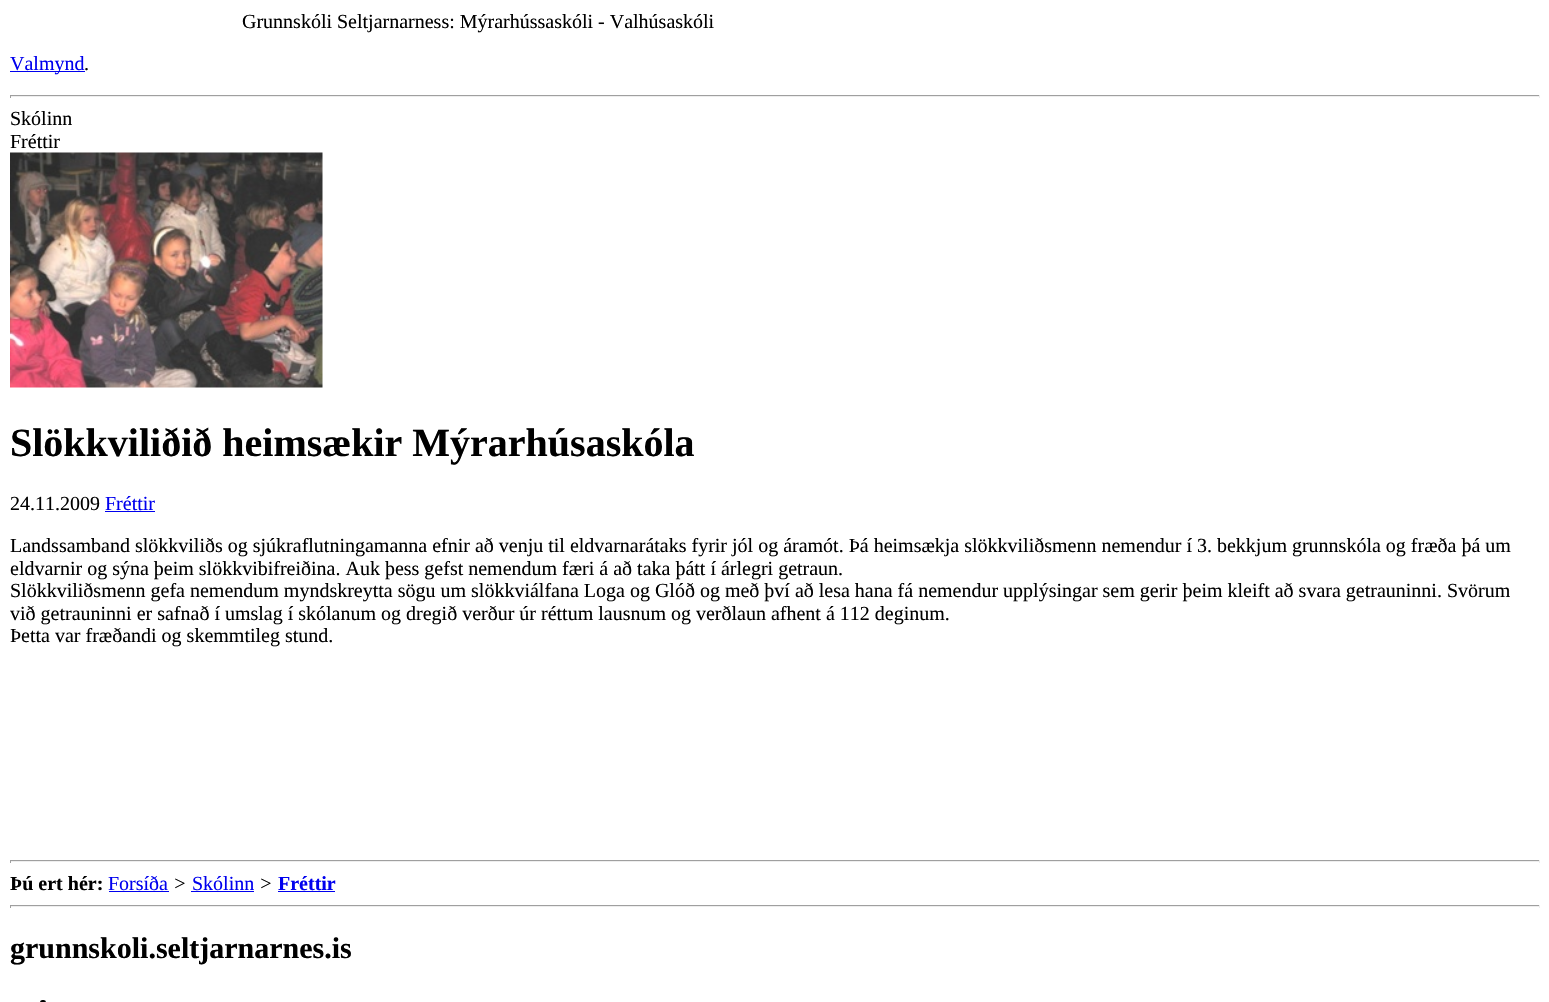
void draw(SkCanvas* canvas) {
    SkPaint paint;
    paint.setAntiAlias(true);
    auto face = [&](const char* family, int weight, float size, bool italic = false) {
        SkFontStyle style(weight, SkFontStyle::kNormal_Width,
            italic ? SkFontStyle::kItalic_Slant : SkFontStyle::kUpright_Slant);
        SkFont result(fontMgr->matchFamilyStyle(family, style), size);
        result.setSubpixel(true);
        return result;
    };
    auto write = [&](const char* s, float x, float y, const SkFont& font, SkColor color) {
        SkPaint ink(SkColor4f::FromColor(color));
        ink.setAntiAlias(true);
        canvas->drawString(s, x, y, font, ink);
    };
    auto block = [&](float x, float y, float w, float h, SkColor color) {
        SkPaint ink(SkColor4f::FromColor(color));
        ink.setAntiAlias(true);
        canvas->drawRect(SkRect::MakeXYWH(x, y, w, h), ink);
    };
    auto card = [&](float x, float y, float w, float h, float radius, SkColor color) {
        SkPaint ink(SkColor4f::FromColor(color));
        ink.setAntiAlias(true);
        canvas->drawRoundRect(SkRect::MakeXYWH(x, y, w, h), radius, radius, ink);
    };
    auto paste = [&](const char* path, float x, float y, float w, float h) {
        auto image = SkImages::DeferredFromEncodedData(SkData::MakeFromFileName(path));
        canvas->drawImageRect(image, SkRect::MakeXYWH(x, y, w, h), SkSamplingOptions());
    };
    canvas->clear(SK_ColorWHITE);
    auto kFont1 = face("Liberation Serif", 400, 20);
    write("Grunnskóli Seltjarnarness: Mýrarhússaskóli - Valhúsaskóli", 242, 28, kFont1, SK_ColorBLACK);
    block(10, 71, 75, 1, SkColorSetRGB(0, 0, 238));
    write("Valmynd", 10, 70, kFont1, SkColorSetRGB(0, 0, 238));
    write(".", 84, 70, kFont1, SK_ColorBLACK);
    block(10, 95, 1530, 1, SkColorSetRGB(159, 159, 159));
    block(1539, 95, 1, 3, SkColorSetRGB(238, 238, 238));
    block(10, 96, 1530, 1, SkColorSetRGB(238, 238, 238));
    block(10, 95, 1, 3, SkColorSetRGB(159, 159, 159));
    write("Skólinn", 10, 125, kFont1, SK_ColorBLACK);
    write("Fréttir", 10, 148, kFont1, SK_ColorBLACK);
    paste("pic1.png", 10, 152, 313, 236);
    auto kFont2 = face("Liberation Serif", 700, 40);
    write("Slökkviliðið heimsækir Mýrarhúsaskóla", 10, 456, kFont2, SK_ColorBLACK);
    write("24.11.2009", 10, 510, kFont1, SK_ColorBLACK);
    write("Fréttir", 105, 510, kFont1, SkColorSetRGB(0, 0, 238));
    block(105, 511, 50, 1, SkColorSetRGB(0, 0, 238));
    write("Landssamband slökkviliðs og sjúkraflutningamanna efnir að venju til eldvarnarátaks fyrir jól og áramót. Þá heimsækja slökkviliðsmenn nemendur í 3. bekkjum grunnskóla og fræða þá um", 10, 552, kFont1, SK_ColorBLACK);
    write("eldvarnir og sýna þeim slökkvibifreiðina. Auk þess gefst nemendum færi á að taka þátt í árlegri getraun.", 10, 575, kFont1, SK_ColorBLACK);
    write("Slökkviliðsmenn gefa nemendum myndskreytta sögu um slökkviálfana Loga og Glóð og með því að lesa hana fá nemendur upplýsingar sem gerir þeim kleift að svara getrauninni. Svörum", 10, 597, kFont1, SK_ColorBLACK);
    write("við getrauninni er safnað í umslag í skólanum og dregið verður úr réttum lausnum og verðlaun afhent á 112 deginum.", 10, 620, kFont1, SK_ColorBLACK);
    write("Þetta var fræðandi og skemmtileg stund.", 10, 642, kFont1, SK_ColorBLACK);
    block(10, 860, 1530, 1, SkColorSetRGB(159, 159, 159));
    block(1539, 860, 1, 3, SkColorSetRGB(238, 238, 238));
    block(10, 861, 1530, 1, SkColorSetRGB(238, 238, 238));
    block(10, 860, 1, 3, SkColorSetRGB(159, 159, 159));
    auto kFont3 = face("Liberation Serif", 700, 20);
    write("Þú ert hér:", 10, 890, kFont3, SK_ColorBLACK);
    write("Forsíða", 108, 890, kFont1, SkColorSetRGB(0, 0, 238));
    block(109, 891, 60, 1, SkColorSetRGB(0, 0, 238));
    auto kFont4 = face("Liberation Serif", 400, 20, true);
    write(">", 173, 890, kFont4, SK_ColorBLACK);
    write("Skólinn", 192, 890, kFont1, SkColorSetRGB(0, 0, 238));
    block(191, 891, 63, 1, SkColorSetRGB(0, 0, 238));
    write(">", 259, 890, kFont4, SK_ColorBLACK);
    write("Fréttir", 278, 890, kFont3, SkColorSetRGB(0, 0, 238));
    block(278, 891, 57, 1, SkColorSetRGB(0, 0, 238));
    block(10, 905, 1530, 1, SkColorSetRGB(159, 159, 159));
    block(1539, 905, 1, 3, SkColorSetRGB(238, 238, 238));
    block(10, 906, 1530, 1, SkColorSetRGB(238, 238, 238));
    block(10, 905, 1, 3, SkColorSetRGB(159, 159, 159));
    auto kFont5 = face("Liberation Serif", 700, 30);
    write("grunnskoli.seltjarnarnes.is", 10, 958, kFont5, SK_ColorBLACK);
    card(40, 1000, 6, 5, 3, SK_ColorBLACK);
}
